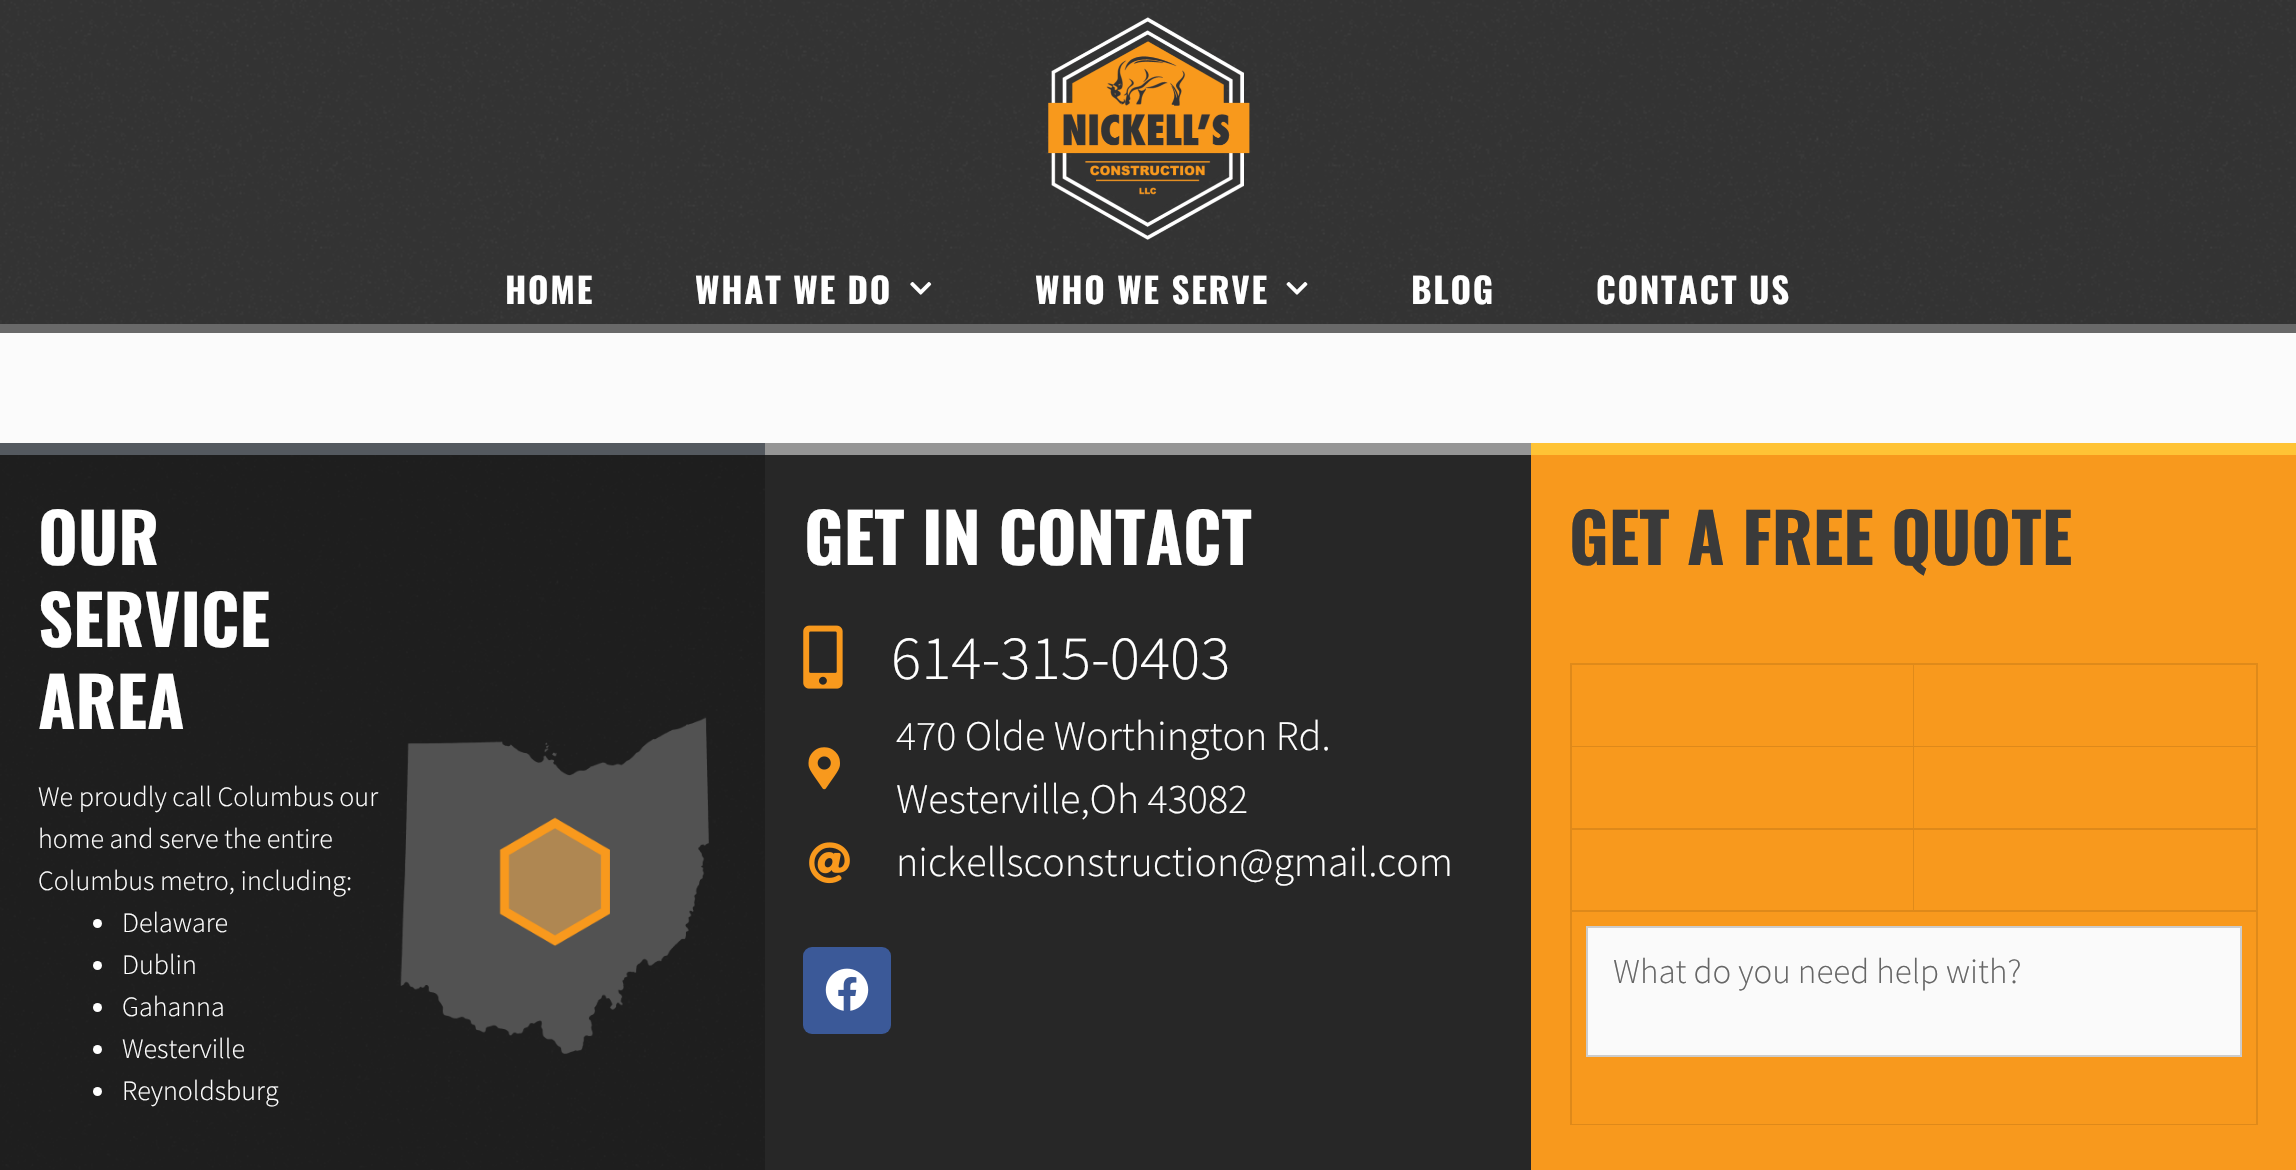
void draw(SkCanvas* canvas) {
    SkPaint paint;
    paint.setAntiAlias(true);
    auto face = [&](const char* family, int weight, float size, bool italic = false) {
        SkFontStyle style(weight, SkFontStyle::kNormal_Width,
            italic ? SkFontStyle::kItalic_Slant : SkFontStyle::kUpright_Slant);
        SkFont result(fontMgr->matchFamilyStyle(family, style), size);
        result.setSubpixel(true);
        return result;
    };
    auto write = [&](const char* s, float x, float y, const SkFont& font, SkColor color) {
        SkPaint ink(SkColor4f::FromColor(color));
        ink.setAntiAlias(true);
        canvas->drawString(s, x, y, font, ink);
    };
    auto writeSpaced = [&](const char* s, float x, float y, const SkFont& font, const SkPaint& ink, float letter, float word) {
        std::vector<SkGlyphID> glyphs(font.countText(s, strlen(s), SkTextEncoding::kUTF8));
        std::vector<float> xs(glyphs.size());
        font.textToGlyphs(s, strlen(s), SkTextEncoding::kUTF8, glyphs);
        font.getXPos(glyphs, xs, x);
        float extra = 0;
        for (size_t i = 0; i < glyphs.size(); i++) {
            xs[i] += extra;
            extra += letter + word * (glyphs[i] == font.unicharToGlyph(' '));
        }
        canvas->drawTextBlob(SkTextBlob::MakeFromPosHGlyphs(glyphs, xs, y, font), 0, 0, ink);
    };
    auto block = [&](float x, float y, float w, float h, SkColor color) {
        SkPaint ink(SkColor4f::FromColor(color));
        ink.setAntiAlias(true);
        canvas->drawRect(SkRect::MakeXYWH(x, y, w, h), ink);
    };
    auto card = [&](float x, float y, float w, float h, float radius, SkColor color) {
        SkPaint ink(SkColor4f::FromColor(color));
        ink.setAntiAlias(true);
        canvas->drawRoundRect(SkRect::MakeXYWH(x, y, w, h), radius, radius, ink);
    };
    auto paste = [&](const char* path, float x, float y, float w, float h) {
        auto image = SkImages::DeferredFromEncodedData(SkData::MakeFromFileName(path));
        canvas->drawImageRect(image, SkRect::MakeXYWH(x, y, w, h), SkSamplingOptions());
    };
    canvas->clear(SkColorSetRGB(251, 251, 251));
    paste("pic1.png", 0, 0, 2296, 324);
    block(0, 324, 2296, 9, SkColorSetRGB(105, 105, 105));
    paste("pic2.png", 1048, 17, 202, 223);
    auto kFont1 = face("Oswald", 700, 35);
    paint.setColor(SK_ColorWHITE);
    writeSpaced("HOME", 505, 304, kFont1, paint, 1.75f, 0);
    writeSpaced("WHAT WE DO", 695, 304, kFont1, paint, 1.75f, 0);
    paste("pic3.png", 910, 282, 22, 13);
    writeSpaced("WHO WE SERVE", 1035, 304, kFont1, paint, 1.75f, 0);
    paste("pic4.png", 1286, 282, 22, 13);
    writeSpaced("BLOG", 1411, 304, kFont1, paint, 1.75f, 0);
    writeSpaced("CONTACT US", 1596, 304, kFont1, paint, 1.75f, 0);
    paste("pic5.png", 0, 455, 765, 715);
    block(0, 443, 765, 12, SkColorSetRGB(84, 89, 95));
    auto kFont2 = face("Oswald", 700, 68.25f);
    write("OUR", 38, 565, kFont2, SK_ColorWHITE);
    write("SERVICE", 38, 647, kFont2, SK_ColorWHITE);
    write("AREA", 38, 729, kFont2, SK_ColorWHITE);
    auto kFont3 = face("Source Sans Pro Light", 300, 28);
    write("We proudly call Columbus our", 38, 806, kFont3, SK_ColorWHITE);
    write("home and serve the entire", 38, 848, kFont3, SK_ColorWHITE);
    write("Columbus metro, including:", 38, 890, kFont3, SK_ColorWHITE);
    canvas->drawCircle(97.5f, 923.5f, 4.5f, paint);
    write("Delaware", 122, 932, kFont3, SK_ColorWHITE);
    canvas->drawCircle(97.5f, 965.5f, 4.5f, paint);
    write("Dublin", 122, 974, kFont3, SK_ColorWHITE);
    canvas->drawCircle(97.5f, 1007.5f, 4.5f, paint);
    write("Gahanna", 122, 1016, kFont3, SK_ColorWHITE);
    canvas->drawCircle(97.5f, 1049.5f, 4.5f, paint);
    write("Westerville", 122, 1058, kFont3, SK_ColorWHITE);
    canvas->drawCircle(97.5f, 1091.5f, 4.5f, paint);
    write("Reynoldsburg", 122, 1100, kFont3, SK_ColorWHITE);
    paste("pic6.png", 400, 717, 309, 337);
    block(765, 455, 766, 715, SkColorSetRGB(39, 39, 39));
    block(765, 443, 766, 12, SkColorSetRGB(149, 149, 149));
    write("GET IN CONTACT", 804, 565, kFont2, SK_ColorWHITE);
    paste("pic7.png", 803, 625, 40, 64);
    auto kFont4 = face("Source Sans Pro Light", 300, 63);
    write("614-315-0403", 891, 679, kFont4, SK_ColorWHITE);
    paste("pic8.png", 808, 747, 32, 43);
    auto kFont5 = face("Source Sans Pro Light", 300, 42);
    write("470 Olde Worthington Rd.", 896, 750, kFont5, SK_ColorWHITE);
    write("Westerville,Oh 43082", 896, 813, kFont5, SK_ColorWHITE);
    paste("pic9.png", 809, 842, 41, 42);
    write("nickellsconstruction@gmail.com", 896, 876, kFont5, SK_ColorWHITE);
    card(803, 947, 88, 87, 9, SkColorSetRGB(59, 89, 152));
    paste("pic10.png", 825, 968, 44, 43);
    block(1531, 455, 765, 715, SkColorSetRGB(248, 153, 29));
    block(1531, 443, 765, 12, SkColorSetRGB(255, 195, 53));
    write("GET A FREE QUOTE", 1569, 565, kFont2, SkColorSetRGB(58, 58, 58));
    paint.setColor(SkColorSetRGB(223, 138, 26));
    canvas->drawPath(SkPathBuilder().moveTo(1570, 663).lineTo(2258, 663).lineTo(2258, 665).lineTo(1572, 665).close().detach(), paint);
    paint.setColor(SkColorSetARGB(26, 0, 0, 0));
    canvas->drawPath(SkPathBuilder().moveTo(1570, 1125).lineTo(1570, 663).lineTo(1572, 665).lineTo(1572, 1125).close().detach(), paint);
    paint.setColor(SkColorSetRGB(223, 138, 26));
    canvas->drawPath(SkPathBuilder().moveTo(1914, 665).lineTo(1914, 747).lineTo(1913, 746).lineTo(1913, 665).close().detach(), paint);
    paint.setColor(SkColorSetARGB(26, 0, 0, 0));
    canvas->drawPath(SkPathBuilder().moveTo(1914, 747).lineTo(1572, 747).lineTo(1572, 746).lineTo(1913, 746).close().detach(), paint);
    paint.setColor(SkColorSetRGB(223, 138, 26));
    canvas->drawPath(SkPathBuilder().moveTo(2258, 665).lineTo(2258, 747).lineTo(2256, 746).lineTo(2256, 665).close().detach(), paint);
    paint.setColor(SkColorSetARGB(26, 0, 0, 0));
    canvas->drawPath(SkPathBuilder().moveTo(2258, 747).lineTo(1914, 747).lineTo(1914, 746).lineTo(2256, 746).close().detach(), paint);
    paint.setColor(SkColorSetRGB(223, 138, 26));
    canvas->drawPath(SkPathBuilder().moveTo(1914, 747).lineTo(1914, 830).lineTo(1913, 828).lineTo(1913, 747).close().detach(), paint);
    paint.setColor(SkColorSetARGB(26, 0, 0, 0));
    canvas->drawPath(SkPathBuilder().moveTo(1914, 830).lineTo(1572, 830).lineTo(1572, 828).lineTo(1913, 828).close().detach(), paint);
    paint.setColor(SkColorSetRGB(223, 138, 26));
    canvas->drawPath(SkPathBuilder().moveTo(2258, 747).lineTo(2258, 830).lineTo(2256, 828).lineTo(2256, 747).close().detach(), paint);
    paint.setColor(SkColorSetARGB(26, 0, 0, 0));
    canvas->drawPath(SkPathBuilder().moveTo(2258, 830).lineTo(1914, 830).lineTo(1914, 828).lineTo(2256, 828).close().detach(), paint);
    paint.setColor(SkColorSetRGB(223, 138, 26));
    canvas->drawPath(SkPathBuilder().moveTo(1914, 830).lineTo(1914, 912).lineTo(1913, 910).lineTo(1913, 830).close().detach(), paint);
    paint.setColor(SkColorSetARGB(26, 0, 0, 0));
    canvas->drawPath(SkPathBuilder().moveTo(1914, 912).lineTo(1572, 912).lineTo(1572, 910).lineTo(1913, 910).close().detach(), paint);
    paint.setColor(SkColorSetRGB(223, 138, 26));
    canvas->drawPath(SkPathBuilder().moveTo(2258, 830).lineTo(2258, 912).lineTo(2256, 910).lineTo(2256, 830).close().detach(), paint);
    paint.setColor(SkColorSetARGB(26, 0, 0, 0));
    canvas->drawPath(SkPathBuilder().moveTo(2258, 912).lineTo(1914, 912).lineTo(1914, 910).lineTo(2256, 910).close().detach(), paint);
    paint.setColor(SkColorSetRGB(223, 138, 26));
    canvas->drawPath(SkPathBuilder().moveTo(2258, 912).lineTo(2258, 1125).lineTo(2256, 1124).lineTo(2256, 912).close().detach(), paint);
    paint.setColor(SkColorSetARGB(26, 0, 0, 0));
    canvas->drawPath(SkPathBuilder().moveTo(2258, 1125).lineTo(1572, 1125).lineTo(1572, 1124).lineTo(2256, 1124).close().detach(), paint);
    paint.setColor(SkColorSetRGB(250, 250, 250));
    canvas->drawRect(SkRect::MakeXYWH(1587, 927, 654, 129), paint);
    paint.setStyle(SkPaint::kStroke_Style);
    paint.setStrokeWidth(2);
    paint.setColor(SkColorSetRGB(204, 204, 204));
    canvas->drawRect(SkRect::MakeXYWH(1587, 927, 654, 129), paint);
    auto kFont6 = face("Source Sans Pro Light", 300, 35);
    write("What do you need help with?", 1613, 983, kFont6, SkColorSetRGB(102, 102, 102));
}
